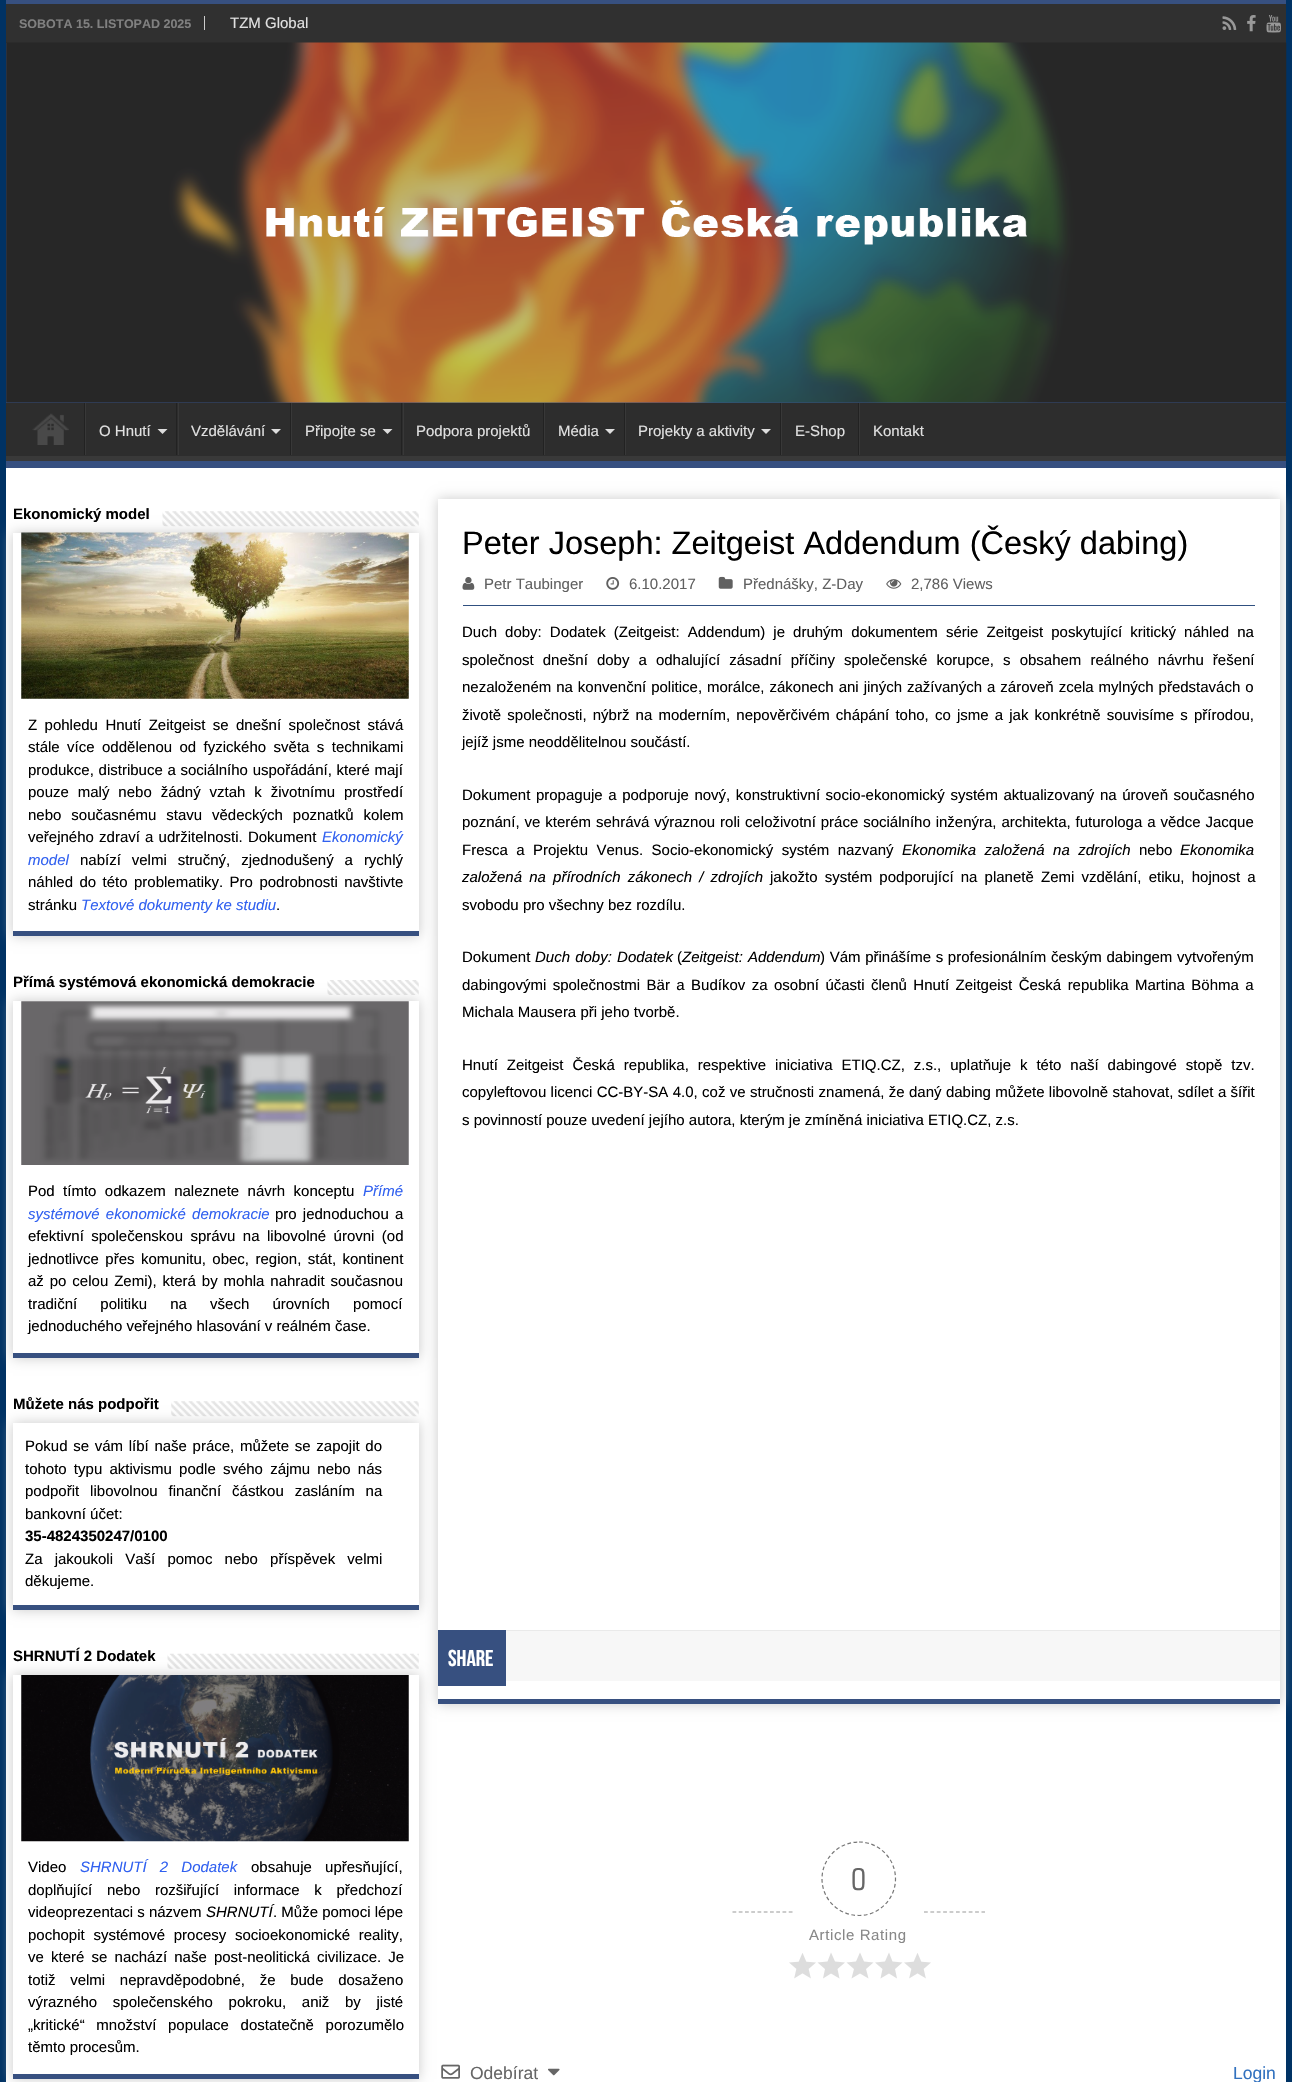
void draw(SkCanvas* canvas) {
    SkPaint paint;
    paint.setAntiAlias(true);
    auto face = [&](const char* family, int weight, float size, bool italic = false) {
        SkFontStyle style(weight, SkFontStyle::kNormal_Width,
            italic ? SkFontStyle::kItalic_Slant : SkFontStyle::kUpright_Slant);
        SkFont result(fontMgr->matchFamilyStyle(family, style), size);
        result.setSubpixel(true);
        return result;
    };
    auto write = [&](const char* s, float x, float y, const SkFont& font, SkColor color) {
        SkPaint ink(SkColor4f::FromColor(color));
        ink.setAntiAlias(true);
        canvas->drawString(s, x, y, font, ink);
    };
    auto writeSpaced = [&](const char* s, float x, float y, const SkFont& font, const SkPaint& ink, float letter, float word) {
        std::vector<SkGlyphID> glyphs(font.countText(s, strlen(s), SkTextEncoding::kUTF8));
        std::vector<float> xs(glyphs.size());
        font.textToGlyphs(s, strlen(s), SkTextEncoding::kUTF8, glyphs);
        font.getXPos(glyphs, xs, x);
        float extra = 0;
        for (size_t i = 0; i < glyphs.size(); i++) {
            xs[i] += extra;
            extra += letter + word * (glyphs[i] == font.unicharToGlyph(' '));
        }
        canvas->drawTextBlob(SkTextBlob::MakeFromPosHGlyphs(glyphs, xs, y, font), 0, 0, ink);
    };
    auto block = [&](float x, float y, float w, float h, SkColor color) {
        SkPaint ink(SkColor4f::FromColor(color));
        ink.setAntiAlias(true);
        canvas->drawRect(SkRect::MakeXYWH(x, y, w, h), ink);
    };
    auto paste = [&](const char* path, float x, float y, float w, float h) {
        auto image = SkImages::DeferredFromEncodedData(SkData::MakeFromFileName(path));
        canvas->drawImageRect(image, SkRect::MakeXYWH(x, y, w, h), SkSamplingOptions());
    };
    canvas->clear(SkColorSetRGB(0, 50, 100));
    block(6, 468, 1280, 1614, SK_ColorWHITE);
    block(6, 0, 1280, 4, SkColorSetRGB(55, 80, 128));
    block(6, 4, 1280, 39, SkColorSetRGB(48, 48, 48));
    block(204, 16, 1, 14, SkColorSetRGB(204, 204, 204));
    auto kFont1 = face("Liberation Sans", 700, 12.5f);
    write("SOBOTA 15. LISTOPAD 2025", 19, 28, kFont1, SkColorSetRGB(128, 128, 128));
    auto kFont2 = face("Liberation Sans", 400, 15);
    write("TZM Global", 230, 28, kFont2, SkColorSetRGB(224, 224, 224));
    paste("pic1.png", 1222, 16, 15, 14);
    paste("pic2.png", 1247, 15, 9, 17);
    paste("pic3.png", 1266, 15, 15, 18);
    block(6, 43, 1280, 360, SkColorSetRGB(55, 80, 128));
    paste("pic4.png", 6, 42, 1281, 361);
    block(6, 403, 1280, 53, SkColorSetRGB(45, 45, 45));
    canvas->save();
    canvas->clipRect(SkRect::MakeXYWH(6, 403, 1280, 58));
    paint.setColor(SkColorSetRGB(57, 57, 57));
    canvas->drawPath(SkPathBuilder(SkPathFillType::kEvenOdd).moveTo(-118, 279).lineTo(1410, 279).lineTo(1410, 585).lineTo(-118, 585).close().moveTo(5, 395).lineTo(1285, 395).cubicTo(1286, 395, 1286, 396, 1286, 396).lineTo(1286, 455).cubicTo(1286, 456, 1286, 456, 1285, 456).lineTo(5, 456).cubicTo(4, 456, 4, 456, 4, 455).lineTo(4, 396).cubicTo(4, 396, 4, 395, 5, 395).close().detach(), paint);
    canvas->restore();
    block(6, 461, 1280, 7, SkColorSetRGB(55, 80, 128));
    paste("pic5.png", 32, 413, 37, 32);
    block(84, 403, 1, 52, SkColorSetRGB(34, 34, 34));
    block(85, 403, 1, 52, SkColorSetRGB(56, 56, 56));
    write("O Hnutí", 99, 436, kFont2, SkColorSetRGB(224, 224, 224));
    paint.setColor(SkColorSetRGB(221, 221, 221));
    canvas->drawPath(SkPathBuilder().moveTo(157.5f, 429).lineTo(167.5f, 429).lineTo(162.5f, 434).close().detach(), paint);
    block(176, 403, 1, 52, SkColorSetRGB(34, 34, 34));
    block(178, 403, 1, 52, SkColorSetRGB(56, 56, 56));
    write("Vzdělávání", 191, 436, kFont2, SkColorSetRGB(224, 224, 224));
    canvas->drawPath(SkPathBuilder().moveTo(271, 429).lineTo(281, 429).lineTo(276, 434).close().detach(), paint);
    block(290, 403, 1, 52, SkColorSetRGB(34, 34, 34));
    block(291, 403, 1, 52, SkColorSetRGB(56, 56, 56));
    write("Připojte se", 305, 436, kFont2, SkColorSetRGB(224, 224, 224));
    canvas->drawPath(SkPathBuilder().moveTo(382.5f, 429).lineTo(392.5f, 429).lineTo(387.5f, 434).close().detach(), paint);
    block(401, 403, 1, 52, SkColorSetRGB(34, 34, 34));
    block(403, 403, 1, 52, SkColorSetRGB(56, 56, 56));
    write("Podpora projektů", 416, 436, kFont2, SkColorSetRGB(224, 224, 224));
    block(543, 403, 1, 52, SkColorSetRGB(34, 34, 34));
    block(544, 403, 1, 52, SkColorSetRGB(56, 56, 56));
    write("Média", 558, 436, kFont2, SkColorSetRGB(224, 224, 224));
    canvas->drawPath(SkPathBuilder().moveTo(605, 429).lineTo(615, 429).lineTo(610, 434).close().detach(), paint);
    block(624, 403, 1, 52, SkColorSetRGB(34, 34, 34));
    block(625, 403, 1, 52, SkColorSetRGB(56, 56, 56));
    write("Projekty a aktivity", 638, 436, kFont2, SkColorSetRGB(224, 224, 224));
    canvas->drawPath(SkPathBuilder().moveTo(761, 429).lineTo(771, 429).lineTo(766, 434).close().detach(), paint);
    block(780, 403, 1, 52, SkColorSetRGB(34, 34, 34));
    block(781, 403, 1, 52, SkColorSetRGB(56, 56, 56));
    write("E-Shop", 795, 436, kFont2, SkColorSetRGB(224, 224, 224));
    block(858, 403, 1, 52, SkColorSetRGB(34, 34, 34));
    block(859, 403, 1, 52, SkColorSetRGB(56, 56, 56));
    write("Kontakt", 873, 436, kFont2, SkColorSetRGB(224, 224, 224));
    paint.setColor(SkColorSetRGB(202, 202, 202));
    paint.setMaskFilter(SkMaskFilter::MakeBlur(kNormal_SkBlurStyle, 6));
    canvas->drawRect(SkRect::MakeXYWH(13, 533, 406, 403), paint);
    paint.setMaskFilter(nullptr);
    auto kFont3 = face("Liberation Sans", 700, 15);
    write("Ekonomický model", 13, 519, kFont3, SK_ColorBLACK);
    paste("pic6.png", 162, 511, 257, 16);
    block(13, 533, 406, 398, SK_ColorWHITE);
    block(13, 931, 406, 5, SkColorSetRGB(55, 80, 128));
    paste("pic7.png", 21, 532, 388, 167);
    paint.setColor(SK_ColorBLACK);
    writeSpaced("Z pohledu Hnutí Zeitgeist se dnešní společnost stává", 28, 730, kFont2, paint, 0, 3.25f);
    writeSpaced("stále více oddělenou od fyzického světa s technikami", 28, 752, kFont2, paint, 0, 3.25f);
    writeSpaced("produkce, distribuce a sociálního uspořádání, které mají", 28, 775, kFont2, paint, 0, 0.5f);
    writeSpaced("pouze malý nebo žádný vztah k životnímu prostředí", 28, 797, kFont2, paint, 0, 4.75f);
    writeSpaced("nebo současnému stavu vědeckých poznatků kolem", 28, 820, kFont2, paint, 0, 5.75f);
    writeSpaced("veřejného zdraví a udržitelnosti. Dokument", 28, 842, kFont2, paint, 0, 1);
    auto kFont4 = face("Liberation Sans", 400, 15, true);
    write("Ekonomický", 322, 842, kFont4, SkColorSetRGB(48, 96, 240));
    write("model", 28, 865, kFont4, SkColorSetRGB(48, 96, 240));
    writeSpaced("nabízí velmi stručný, zjednodušený a rychlý", 80, 865, kFont2, paint, 0, 6.75f);
    writeSpaced("náhled do této problematiky. Pro podrobnosti navštivte", 28, 887, kFont2, paint, 0, 2.25f);
    write("stránku", 28, 910, kFont2, SK_ColorBLACK);
    write("Textové dokumenty ke studiu", 81, 910, kFont4, SkColorSetRGB(48, 96, 240));
    write(".", 276, 910, kFont2, SK_ColorBLACK);
    paint.setColor(SkColorSetRGB(202, 202, 202));
    paint.setMaskFilter(SkMaskFilter::MakeBlur(kNormal_SkBlurStyle, 6));
    canvas->drawRect(SkRect::MakeXYWH(13, 1001, 406, 357), paint);
    paint.setMaskFilter(nullptr);
    write("Přímá systémová ekonomická demokracie", 13, 987, kFont3, SK_ColorBLACK);
    paste("pic8.png", 327, 980, 92, 15);
    block(13, 1001, 406, 352, SK_ColorWHITE);
    block(13, 1353, 406, 5, SkColorSetRGB(55, 80, 128));
    paste("pic9.png", 21, 1001, 388, 164);
    paint.setColor(SK_ColorBLACK);
    writeSpaced("Pod tímto odkazem naleznete návrh konceptu", 28, 1196, kFont2, paint, 0, 4.25f);
    write("Přímé", 363, 1196, kFont4, SkColorSetRGB(48, 96, 240));
    paint.setColor(SkColorSetRGB(48, 96, 240));
    writeSpaced("systémové ekonomické demokracie", 28, 1219, kFont4, paint, 0, 2);
    paint.setColor(SK_ColorBLACK);
    writeSpaced("pro jednoduchou a", 275, 1219, kFont2, paint, 0, 2);
    writeSpaced("efektivní společenskou správu na libovolné úrovni (od", 28, 1241, kFont2, paint, 0, 3.25f);
    writeSpaced("jednotlivce přes komunitu, obec, region, stát, kontinent", 28, 1264, kFont2, paint, 0, 2.25f);
    writeSpaced("až po celou Zemi), která by mohla nahradit současnou", 28, 1286, kFont2, paint, 0, 1.75f);
    writeSpaced("tradiční politiku na všech úrovních pomocí", 28, 1309, kFont2, paint, 0, 19);
    write("jednoduchého veřejného hlasování v reálném čase.", 28, 1331, kFont2, SK_ColorBLACK);
    paint.setColor(SkColorSetRGB(202, 202, 202));
    paint.setMaskFilter(SkMaskFilter::MakeBlur(kNormal_SkBlurStyle, 6));
    canvas->drawRect(SkRect::MakeXYWH(13, 1423, 406, 187), paint);
    paint.setMaskFilter(nullptr);
    write("Můžete nás podpořit", 13, 1409, kFont3, SK_ColorBLACK);
    paste("pic10.png", 171, 1401, 248, 16);
    block(13, 1423, 406, 182, SK_ColorWHITE);
    block(13, 1605, 406, 5, SkColorSetRGB(55, 80, 128));
    paint.setColor(SK_ColorBLACK);
    writeSpaced("Pokud se vám líbí naše práce, můžete se zapojit do", 25, 1451, kFont2, paint, 0, 1.5f);
    writeSpaced("tohoto typu aktivismu podle svého zájmu nebo nás", 25, 1474, kFont2, paint, 0, 3);
    writeSpaced("podpořit libovolnou finanční částkou zasláním na", 25, 1496, kFont2, paint, 0, 6.75f);
    write("bankovní účet:", 25, 1519, kFont2, SK_ColorBLACK);
    write("35-4824350247/0100", 25, 1541, kFont3, SK_ColorBLACK);
    writeSpaced("Za jakoukoli Vaší pomoc nebo příspěvek velmi", 25, 1564, kFont2, paint, 0, 8);
    write("děkujeme.", 25, 1586, kFont2, SK_ColorBLACK);
    paint.setColor(SkColorSetRGB(202, 202, 202));
    paint.setMaskFilter(SkMaskFilter::MakeBlur(kNormal_SkBlurStyle, 6));
    canvas->drawRect(SkRect::MakeXYWH(13, 1675, 406, 404), paint);
    paint.setMaskFilter(nullptr);
    write("SHRNUTÍ 2 Dodatek", 13, 1661, kFont3, SK_ColorBLACK);
    paste("pic11.png", 167, 1653, 252, 16);
    block(13, 1675, 406, 399, SK_ColorWHITE);
    block(13, 2074, 406, 5, SkColorSetRGB(55, 80, 128));
    paste("pic12.png", 21, 1675, 388, 167);
    write("Video", 28, 1872, kFont2, SK_ColorBLACK);
    paint.setColor(SkColorSetRGB(48, 96, 240));
    writeSpaced("SHRNUTÍ 2 Dodatek", 80, 1872, kFont4, paint, 0, 9);
    paint.setColor(SK_ColorBLACK);
    writeSpaced("obsahuje upřesňující,", 251, 1872, kFont2, paint, 0, 9);
    writeSpaced("doplňující nebo rozšiřující informace k předchozí", 28, 1895, kFont2, paint, 0, 10.5f);
    write("videoprezentaci s názvem", 28, 1917, kFont2, SK_ColorBLACK);
    write("SHRNUTÍ", 206, 1917, kFont4, SK_ColorBLACK);
    write(". Může pomoci lépe", 273, 1917, kFont2, SK_ColorBLACK);
    writeSpaced("pochopit systémové procesy socioekonomické reality,", 28, 1940, kFont2, paint, 0, 4.5f);
    writeSpaced("ve které se nachází naše post-neolitická civilizace. Je", 28, 1962, kFont2, paint, 0, 3);
    writeSpaced("totiž velmi nepravděpodobné, že bude dosaženo", 28, 1985, kFont2, paint, 0, 10.5f);
    writeSpaced("výrazného společenského pokroku, aniž by jisté", 28, 2007, kFont2, paint, 0, 11.5f);
    writeSpaced("„kritické“ množství populace dostatečně porozumělo", 28, 2030, kFont2, paint, 0, 7.5f);
    write("těmto procesům.", 28, 2052, kFont2, SK_ColorBLACK);
    paint.setColor(SkColorSetRGB(202, 202, 202));
    paint.setMaskFilter(SkMaskFilter::MakeBlur(kNormal_SkBlurStyle, 6));
    canvas->drawRect(SkRect::MakeXYWH(438, 499, 842, 1205), paint);
    paint.setMaskFilter(nullptr);
    block(438, 499, 842, 1200, SK_ColorWHITE);
    block(438, 1699, 842, 5, SkColorSetRGB(55, 80, 128));
    auto kFont5 = face("Liberation Sans", 400, 32.5f);
    write("Peter Joseph: Zeitgeist Addendum (Český dabing)", 462, 554, kFont5, SK_ColorBLACK);
    block(463, 605, 792, 1, SkColorSetRGB(48, 80, 128));
    paste("pic13.png", 462, 577, 13, 13);
    write("Petr Taubinger", 484, 589, kFont2, SkColorSetRGB(96, 96, 96));
    paste("pic14.png", 606, 577, 14, 13);
    write("6.10.2017", 629, 589, kFont2, SkColorSetRGB(96, 96, 96));
    paste("pic15.png", 718, 576, 15, 13);
    write("Přednášky, Z-Day", 743, 589, kFont2, SkColorSetRGB(96, 96, 96));
    paste("pic16.png", 886, 579, 16, 10);
    write("2,786 Views", 911, 589, kFont2, SkColorSetRGB(96, 96, 96));
    paint.setColor(SK_ColorBLACK);
    writeSpaced("Duch doby: Dodatek (Zeitgeist: Addendum) je druhým dokumentem série Zeitgeist poskytující kritický náhled na", 462, 637, kFont2, paint, 0, 3.9f);
    writeSpaced("společnost dnešní doby a odhalující zásadní příčiny společenské korupce, s obsahem reálného návrhu řešení", 462, 665, kFont2, paint, 0, 4.9f);
    writeSpaced("nezaloženém na konvenční politice, morálce, zákonech ani jiných zažívaných a zároveň zcela mylných představách o", 462, 692, kFont2, paint, 0, 0.8f);
    writeSpaced("životě společnosti, nýbrž na moderním, nepověrčivém chápání toho, co jsme a jak konkrétně souvisíme s přírodou,", 462, 720, kFont2, paint, 0, 2);
    write("jejíž jsme neoddělitelnou součástí.", 462, 747, kFont2, SK_ColorBLACK);
    writeSpaced("Dokument propaguje a podporuje nový, konstruktivní socio-ekonomický systém aktualizovaný na úroveň současného", 462, 800, kFont2, paint, 0, 1.4f);
    writeSpaced("poznání, ve kterém sehrává výraznou roli celoživotní práce sociálního inženýra, architekta, futurologa a vědce Jacque", 462, 827, kFont2, paint, 0, 0.75f);
    writeSpaced("Fresca a Projektu Venus. Socio-ekonomický systém nazvaný", 462, 855, kFont2, paint, 0, 4.25f);
    writeSpaced("Ekonomika založená na zdrojích", 902, 855, kFont4, paint, 0, 4.25f);
    write("nebo", 1139, 855, kFont2, SK_ColorBLACK);
    write("Ekonomika", 1180, 855, kFont4, SK_ColorBLACK);
    writeSpaced("založená na přírodních zákonech / zdrojích", 462, 882, kFont4, paint, 0, 3);
    writeSpaced("jakožto systém podporující na planetě Zemi vzdělání, etiku, hojnost a", 770, 882, kFont2, paint, 0, 3);
    write("svobodu pro všechny bez rozdílu.", 462, 910, kFont2, SK_ColorBLACK);
    write("Dokument", 462, 962, kFont2, SK_ColorBLACK);
    writeSpaced("Duch doby: Dodatek", 535, 962, kFont4, paint, 0, 1);
    write("(", 677, 962, kFont2, SK_ColorBLACK);
    writeSpaced("Zeitgeist: Addendum", 682, 962, kFont4, paint, 0, 1);
    writeSpaced(") Vám přinášíme s profesionálním českým dabingem vytvořeným", 820, 962, kFont2, paint, 0, 0.5f);
    writeSpaced("dabingovými společnostmi Bär a Budíkov za osobní účasti členů Hnutí Zeitgeist Česká republika Martina Böhma a", 462, 990, kFont2, paint, 0, 2.25f);
    write("Michala Mausera při jeho tvorbě.", 462, 1017, kFont2, SK_ColorBLACK);
    writeSpaced("Hnutí Zeitgeist Česká republika, respektive iniciativa ETIQ.CZ, z.s., uplatňuje k této naší dabingové stopě tzv.", 462, 1070, kFont2, paint, 0, 4.75f);
    writeSpaced("copyleftovou licenci CC-BY-SA 4.0, což ve stručnosti znamená, že daný dabing můžete libovolně stahovat, sdílet a šířit", 462, 1097, kFont2, paint, 0, 0.2f);
    write("s povinností pouze uvedení jejího autora, kterým je zmíněná iniciativa ETIQ.CZ, z.s.", 462, 1125, kFont2, SK_ColorBLACK);
    block(506, 1631, 774, 50, SkColorSetRGB(247, 247, 247));
    block(506, 1630, 774, 1, SkColorSetRGB(234, 234, 234));
    block(438, 1630, 68, 56, SkColorSetRGB(55, 80, 128));
    auto kFont6 = face("Bebas Neue", 700, 23);
    write("Share", 448, 1666, kFont6, SK_ColorWHITE);
    paint.setStyle(SkPaint::kStroke_Style);
    paint.setStrokeWidth(1.2f);
    paint.setColor(SkColorSetRGB(153, 153, 153));
    paint.setPathEffect(SkDashPathEffect::Make({{3.75f, 2.5f}}, 0));
    canvas->drawPath(SkPathBuilder().moveTo(732.5f, 1912).lineTo(792.5f, 1912).detach(), paint);
    paint.setPathEffect(nullptr);
    paint.setColor(SkColorSetRGB(119, 119, 119));
    paint.setPathEffect(SkDashPathEffect::Make({{3.75f, 2.5f}}, 0));
    canvas->drawPath(SkPathBuilder().moveTo(859, 1842).cubicTo(879, 1842, 895.5f, 1858.5f, 895.5f, 1879).cubicTo(895.5f, 1899, 879, 1915.5f, 859, 1915.5f).cubicTo(838.5f, 1915.5f, 822, 1899, 822, 1879).cubicTo(822, 1858.5f, 838.5f, 1842, 859, 1842).close().detach(), paint);
    paint.setPathEffect(nullptr);
    auto kFont7 = face("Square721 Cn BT", 400, 30);
    write("0", 851, 1890, kFont7, SkColorSetRGB(102, 102, 102));
    paint.setStyle(SkPaint::kFill_Style);
    paint.setColor(SkColorSetRGB(136, 136, 136));
    writeSpaced("Article Rating", 809, 1940, kFont2, paint, 0.6f, 0);
    paste("pic17.png", 789, 1953, 27, 26);
    paint.setColor(SkColorSetRGB(221, 221, 221));
    canvas->drawPath(SkPathBuilder().moveTo(831, 1973.5f).lineTo(839.5f, 1978.5f).lineTo(837.5f, 1969).lineTo(845, 1962.5f).lineTo(835, 1961.5f).lineTo(831, 1952.5f).lineTo(827.5f, 1961.5f).lineTo(817.5f, 1962.5f).lineTo(825, 1969).lineTo(823, 1978.5f).close().moveTo(860, 1973.5f).lineTo(868.5f, 1978.5f).lineTo(866, 1969).lineTo(873.5f, 1962.5f).lineTo(864, 1961.5f).lineTo(860, 1952.5f).lineTo(856, 1961.5f).lineTo(846.5f, 1962.5f).lineTo(854, 1969).lineTo(851.5f, 1978.5f).close().detach(), paint);
    canvas->drawPath(SkPathBuilder().moveTo(889, 1973.5f).lineTo(897, 1978.5f).lineTo(895, 1969).lineTo(902.5f, 1962.5f).lineTo(892.5f, 1961.5f).lineTo(889, 1952.5f).lineTo(885, 1961.5f).lineTo(875, 1962.5f).lineTo(882.5f, 1969).lineTo(880.5f, 1978.5f).close().detach(), paint);
    paste("pic17.png", 904, 1953, 27, 26);
    paint.setStyle(SkPaint::kStroke_Style);
    paint.setColor(SkColorSetRGB(153, 153, 153));
    paint.setPathEffect(SkDashPathEffect::Make({{3.75f, 2.64f}}, 0));
    canvas->drawPath(SkPathBuilder().moveTo(924, 1912).lineTo(985, 1912).detach(), paint);
    paint.setPathEffect(nullptr);
    paste("pic18.png", 441, 2064, 19, 15);
    auto kFont8 = face("Liberation Sans", 400, 17.5f);
    write("Odebírat", 470, 2079, kFont8, SkColorSetRGB(102, 102, 102));
    paste("pic19.png", 548, 2068, 12, 8);
    write("Login", 1233, 2079, kFont8, SkColorSetRGB(50, 114, 191));
}
